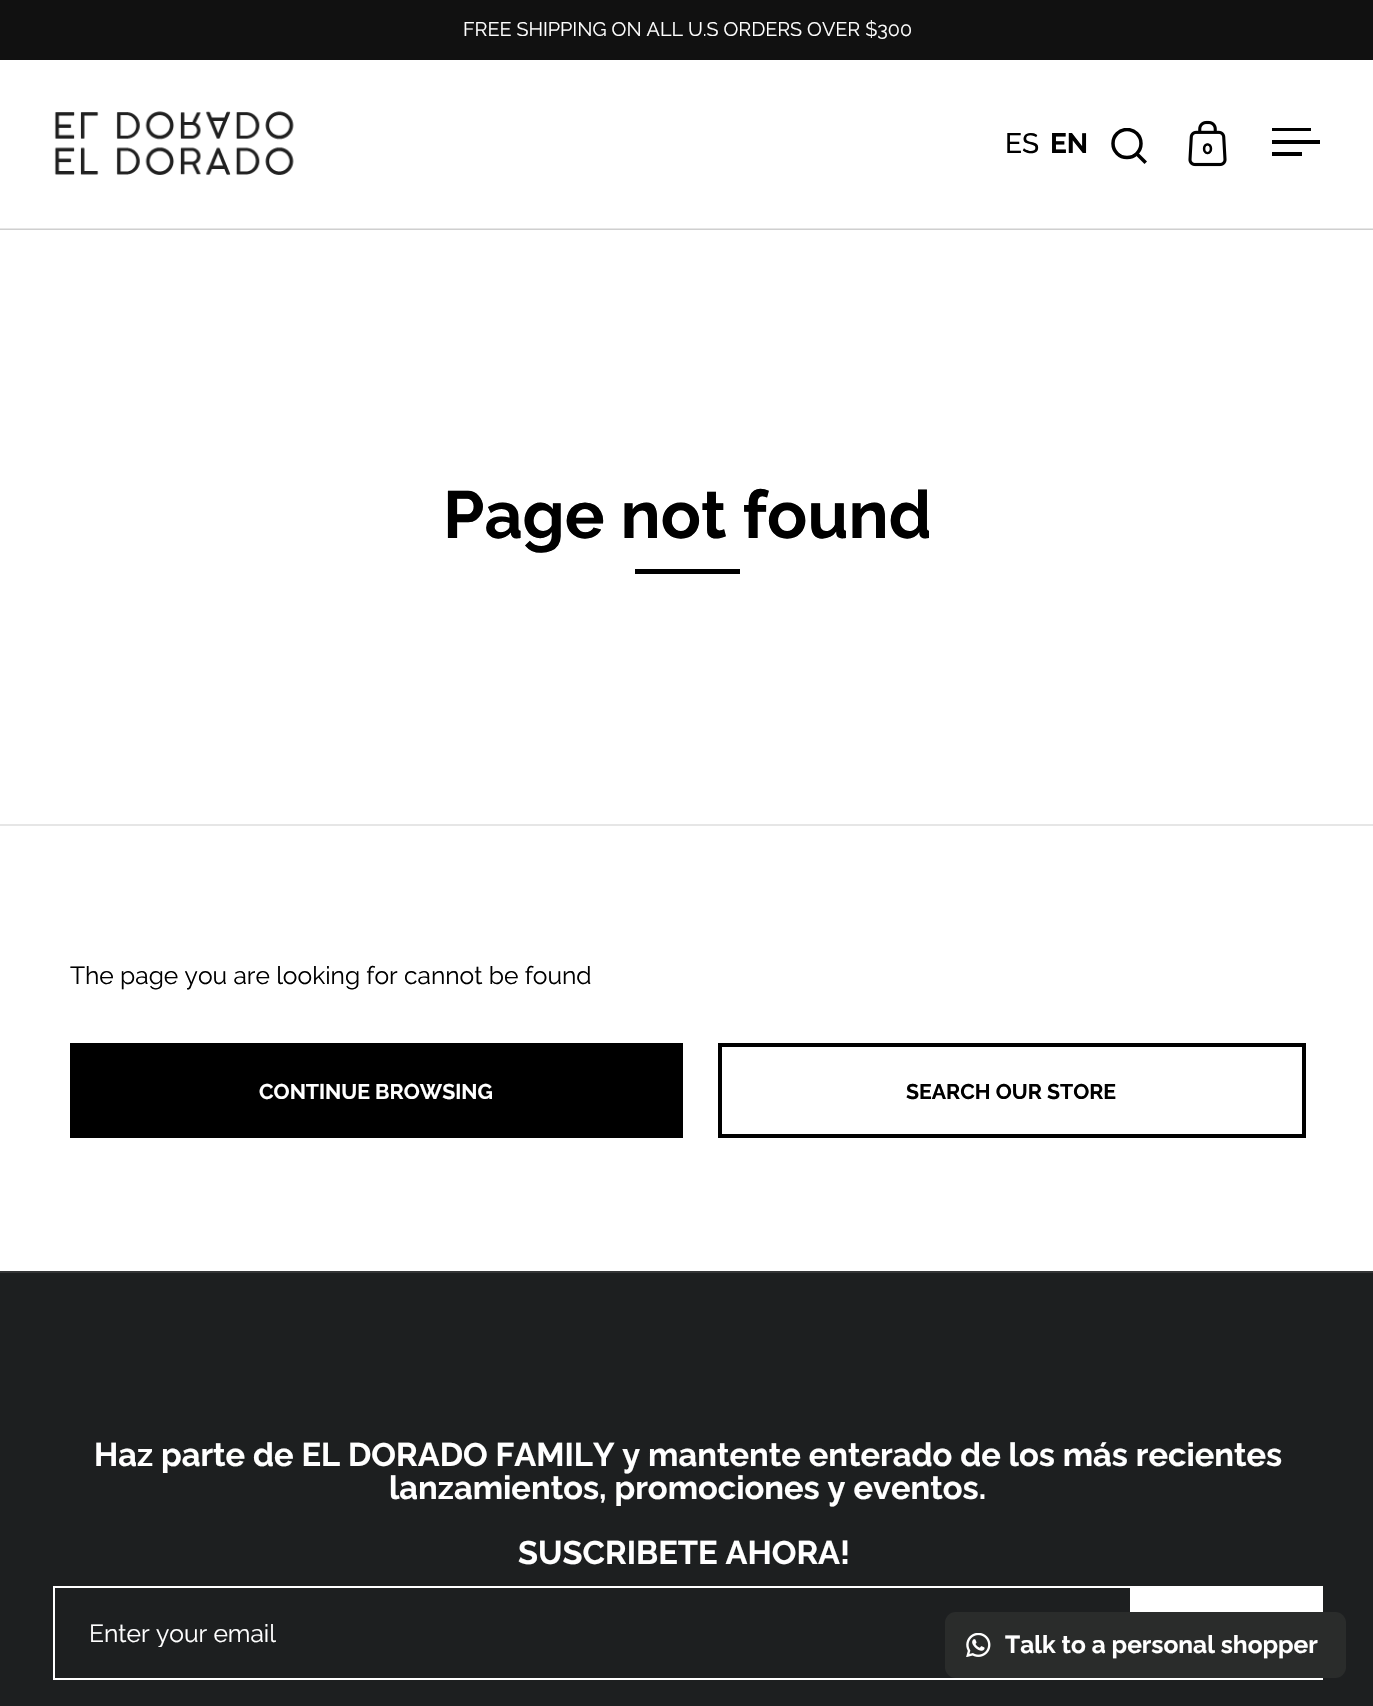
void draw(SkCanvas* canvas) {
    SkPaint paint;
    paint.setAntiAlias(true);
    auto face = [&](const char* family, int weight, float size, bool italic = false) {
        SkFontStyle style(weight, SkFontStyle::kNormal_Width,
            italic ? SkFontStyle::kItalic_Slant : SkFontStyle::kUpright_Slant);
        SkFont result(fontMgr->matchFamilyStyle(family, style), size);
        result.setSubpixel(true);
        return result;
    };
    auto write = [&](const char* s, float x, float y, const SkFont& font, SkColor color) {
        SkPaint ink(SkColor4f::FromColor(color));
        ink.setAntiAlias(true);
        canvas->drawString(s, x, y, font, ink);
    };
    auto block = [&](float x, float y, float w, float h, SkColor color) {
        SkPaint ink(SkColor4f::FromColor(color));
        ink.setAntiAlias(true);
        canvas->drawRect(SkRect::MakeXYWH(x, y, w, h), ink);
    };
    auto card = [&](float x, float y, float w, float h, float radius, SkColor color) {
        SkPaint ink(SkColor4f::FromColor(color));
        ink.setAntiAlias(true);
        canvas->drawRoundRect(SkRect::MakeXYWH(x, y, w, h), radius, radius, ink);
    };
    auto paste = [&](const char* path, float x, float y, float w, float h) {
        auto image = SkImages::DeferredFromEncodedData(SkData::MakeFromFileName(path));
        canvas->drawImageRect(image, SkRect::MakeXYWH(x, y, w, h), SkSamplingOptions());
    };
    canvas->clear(SK_ColorWHITE);
    block(0, 0, 1373, 60, SkColorSetRGB(17, 17, 17));
    auto kFont1 = face("Raleway", 400, 19.7f);
    write("FREE SHIPPING ON ALL U.S ORDERS OVER $300", 463, 36, kFont1, SK_ColorWHITE);
    block(0, 228, 1373, 1, SkColorSetRGB(230, 230, 230));
    paste("pic1.png", 54, 111, 240, 64);
    auto kFont2 = face("Raleway", 500, 28);
    write("ES", 1005, 153, kFont2, SK_ColorBLACK);
    auto kFont3 = face("Raleway", 700, 28);
    write("EN", 1050, 153, kFont3, SK_ColorBLACK);
    canvas->save();
    canvas->clipRect(SkRect::MakeXYWH(1111, 128, 37, 37));
    paint.setStyle(SkPaint::kStroke_Style);
    paint.setStrokeWidth(3.5f);
    paint.setColor(SK_ColorBLACK);
    canvas->drawCircle(1127, 143.5f, 14, paint);
    canvas->restore();
    paint.setStyle(SkPaint::kFill_Style);
    canvas->drawPath(SkPathBuilder().moveTo(1136, 155.5f).lineTo(1138.5f, 153).lineTo(1147, 161.5f).lineTo(1144.5f, 164).close().detach(), paint);
    paste("pic2.png", 1188, 120, 39, 47);
    auto kFont4 = face("Raleway", 700, 18);
    write("0", 1202, 154, kFont4, SK_ColorBLACK);
    block(1272, 128, 39, 3, SK_ColorBLACK);
    block(1272, 140, 48, 4, SK_ColorBLACK);
    block(1272, 152, 30, 4, SK_ColorBLACK);
    block(0, 229, 1373, 1, SkColorSetRGB(207, 207, 207));
    auto kFont5 = face("Raleway", 700, 66.5f);
    write("Page not found", 443, 538, kFont5, SK_ColorBLACK);
    block(635, 569, 105, 5, SK_ColorBLACK);
    block(0, 824, 1373, 2, SkColorSetRGB(230, 230, 230));
    auto kFont6 = face("Raleway", 400, 24.6f);
    write("The page you are looking for cannot be found", 70, 984, kFont6, SK_ColorBLACK);
    block(70, 1043, 613, 95, SK_ColorBLACK);
    auto kFont7 = face("Raleway", 700, 21.25f);
    write("CONTINUE BROWSING", 259, 1099, kFont7, SK_ColorWHITE);
    paint.setStyle(SkPaint::kStroke_Style);
    paint.setStrokeWidth(4);
    canvas->drawRect(SkRect::MakeXYWH(720, 1045, 584, 91), paint);
    write("SEARCH OUR STORE", 906, 1099, kFont7, SK_ColorBLACK);
    block(0, 1273, 1373, 433, SkColorSetRGB(29, 31, 32));
    block(0, 1271, 1373, 2, SkColorSetRGB(52, 53, 54));
    auto kFont8 = face("Raleway", 700, 32.65f);
    write("Haz parte de EL DORADO FAMILY y mantente enterado de los más recientes", 94, 1466, kFont8, SK_ColorWHITE);
    write("lanzamientos, promociones y eventos.", 389, 1499, kFont8, SK_ColorWHITE);
    write("SUSCRIBETE AHORA!", 518, 1564, kFont8, SK_ColorWHITE);
    paint.setStrokeWidth(2);
    paint.setColor(SK_ColorWHITE);
    canvas->drawRect(SkRect::MakeXYWH(54, 1587, 1077, 92), paint);
    canvas->save();
    canvas->clipRect(SkRect::MakeXYWH(89, 1619, 1007, 28));
    write("Enter your email", 89, 1642, kFont6, SK_ColorWHITE);
    canvas->restore();
    block(1132, 1586, 191, 94, SK_ColorWHITE);
    card(945, 1612, 401, 66, 11, SkColorSetRGB(42, 44, 43));
    paste("pic3.png", 966, 1633, 25, 24);
    auto kFont9 = face("Raleway", 700, 24.5f);
    write("Talk to a personal shopper", 1005, 1653, kFont9, SK_ColorWHITE);
}
